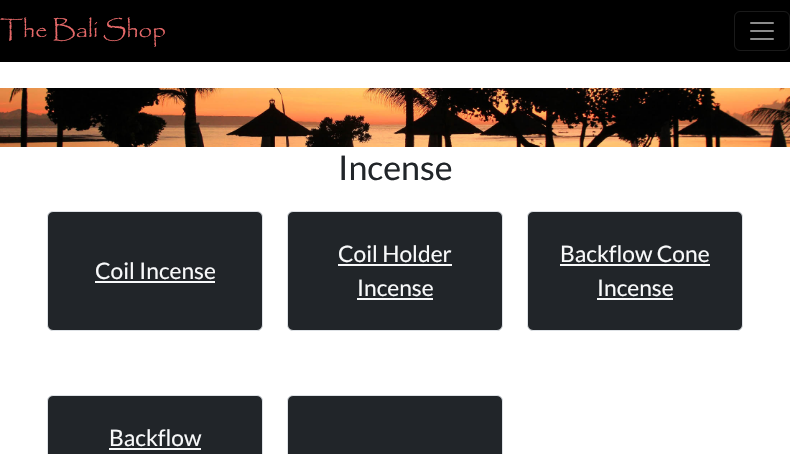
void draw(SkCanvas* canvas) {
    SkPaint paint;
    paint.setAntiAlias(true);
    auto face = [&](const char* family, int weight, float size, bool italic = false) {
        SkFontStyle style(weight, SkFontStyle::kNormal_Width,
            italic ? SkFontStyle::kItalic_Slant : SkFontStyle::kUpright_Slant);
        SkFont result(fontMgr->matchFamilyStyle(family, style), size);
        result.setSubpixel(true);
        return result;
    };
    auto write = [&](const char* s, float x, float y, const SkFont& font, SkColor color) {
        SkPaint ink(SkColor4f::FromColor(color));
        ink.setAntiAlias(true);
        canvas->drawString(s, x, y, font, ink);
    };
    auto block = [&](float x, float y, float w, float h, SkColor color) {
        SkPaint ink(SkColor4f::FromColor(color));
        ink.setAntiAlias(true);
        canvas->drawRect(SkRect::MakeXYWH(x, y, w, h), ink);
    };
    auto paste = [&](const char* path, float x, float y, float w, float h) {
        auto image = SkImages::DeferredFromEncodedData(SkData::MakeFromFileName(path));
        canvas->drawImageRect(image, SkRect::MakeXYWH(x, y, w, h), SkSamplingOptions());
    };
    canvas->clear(SK_ColorWHITE);
    block(0, 0, 790, 62, SK_ColorBLACK);
    auto kFont1 = face("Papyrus", 400, 24);
    write("The Bali Shop", 0, 37, kFont1, SkColorSetRGB(231, 105, 105));
    paint.setStyle(SkPaint::kStroke_Style);
    paint.setStrokeWidth(1);
    paint.setColor(SkColorSetRGB(26, 26, 26));
    canvas->drawRoundRect(SkRect::MakeXYWH(734.5f, 11.5f, 55, 39), 5.5f, 5.5f, paint);
    paste("pic1.png", 750, 22, 24, 18);
    paste("pic2.png", 0, 88, 790, 59);
    auto kFont2 = face("Lato", 400, 34);
    write("Incense", 338, 180, kFont2, SkColorSetRGB(33, 37, 41));
    paint.setStyle(SkPaint::kFill_Style);
    paint.setColor(SkColorSetRGB(33, 37, 41));
    canvas->drawRoundRect(SkRect::MakeXYWH(47.5f, 211.5f, 215, 119), 5.5f, 5.5f, paint);
    paint.setStyle(SkPaint::kStroke_Style);
    paint.setColor(SkColorSetRGB(222, 226, 230));
    canvas->drawRoundRect(SkRect::MakeXYWH(47.5f, 211.5f, 215, 119), 5.5f, 5.5f, paint);
    auto kFont3 = face("Lato", 400, 22.75f);
    write("Coil Incense", 95, 279, kFont3, SkColorSetRGB(248, 249, 250));
    block(95, 281, 120, 2, SkColorSetRGB(248, 249, 250));
    paint.setStyle(SkPaint::kFill_Style);
    paint.setColor(SkColorSetRGB(33, 37, 41));
    canvas->drawRoundRect(SkRect::MakeXYWH(287.5f, 211.5f, 215, 119), 5.5f, 5.5f, paint);
    paint.setStyle(SkPaint::kStroke_Style);
    paint.setColor(SkColorSetRGB(222, 226, 230));
    canvas->drawRoundRect(SkRect::MakeXYWH(287.5f, 211.5f, 215, 119), 5.5f, 5.5f, paint);
    write("Coil Holder", 338, 262, kFont3, SkColorSetRGB(248, 249, 250));
    block(338, 264, 114, 2, SkColorSetRGB(248, 249, 250));
    write("Incense", 357, 296, kFont3, SkColorSetRGB(248, 249, 250));
    block(357, 298, 76, 2, SkColorSetRGB(248, 249, 250));
    paint.setStyle(SkPaint::kFill_Style);
    paint.setColor(SkColorSetRGB(33, 37, 41));
    canvas->drawRoundRect(SkRect::MakeXYWH(527.5f, 211.5f, 215, 119), 5.5f, 5.5f, paint);
    paint.setStyle(SkPaint::kStroke_Style);
    paint.setColor(SkColorSetRGB(222, 226, 230));
    canvas->drawRoundRect(SkRect::MakeXYWH(527.5f, 211.5f, 215, 119), 5.5f, 5.5f, paint);
    write("Backflow Cone", 560, 262, kFont3, SkColorSetRGB(248, 249, 250));
    block(560, 264, 150, 2, SkColorSetRGB(248, 249, 250));
    write("Incense", 597, 296, kFont3, SkColorSetRGB(248, 249, 250));
    block(597, 298, 76, 2, SkColorSetRGB(248, 249, 250));
    paint.setStyle(SkPaint::kFill_Style);
    paint.setColor(SkColorSetRGB(33, 37, 41));
    canvas->drawRoundRect(SkRect::MakeXYWH(47.5f, 395.5f, 215, 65), 5.5f, 5.5f, paint);
    paint.setStyle(SkPaint::kStroke_Style);
    paint.setColor(SkColorSetRGB(222, 226, 230));
    canvas->drawRoundRect(SkRect::MakeXYWH(47.5f, 395.5f, 215, 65), 5.5f, 5.5f, paint);
    write("Backflow", 109, 446, kFont3, SkColorSetRGB(248, 249, 250));
    block(109, 448, 92, 2, SkColorSetRGB(248, 249, 250));
    paint.setStyle(SkPaint::kFill_Style);
    paint.setColor(SkColorSetRGB(33, 37, 41));
    canvas->drawRoundRect(SkRect::MakeXYWH(287.5f, 395.5f, 215, 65), 5.5f, 5.5f, paint);
    paint.setStyle(SkPaint::kStroke_Style);
    paint.setColor(SkColorSetRGB(222, 226, 230));
    canvas->drawRoundRect(SkRect::MakeXYWH(287.5f, 395.5f, 215, 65), 5.5f, 5.5f, paint);
}
